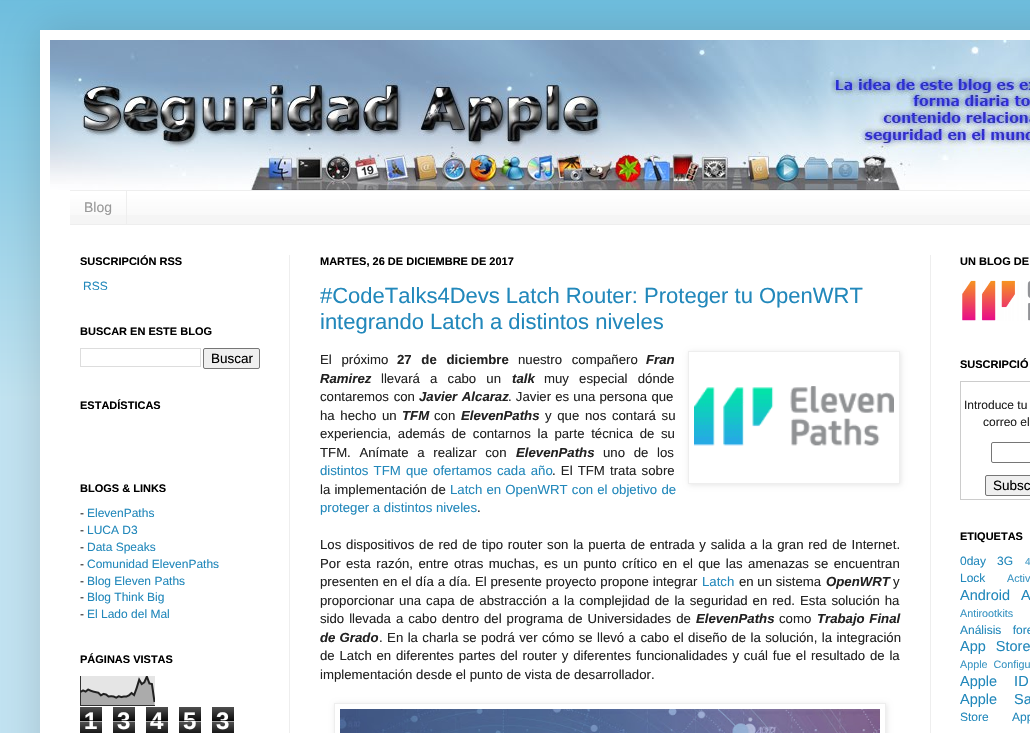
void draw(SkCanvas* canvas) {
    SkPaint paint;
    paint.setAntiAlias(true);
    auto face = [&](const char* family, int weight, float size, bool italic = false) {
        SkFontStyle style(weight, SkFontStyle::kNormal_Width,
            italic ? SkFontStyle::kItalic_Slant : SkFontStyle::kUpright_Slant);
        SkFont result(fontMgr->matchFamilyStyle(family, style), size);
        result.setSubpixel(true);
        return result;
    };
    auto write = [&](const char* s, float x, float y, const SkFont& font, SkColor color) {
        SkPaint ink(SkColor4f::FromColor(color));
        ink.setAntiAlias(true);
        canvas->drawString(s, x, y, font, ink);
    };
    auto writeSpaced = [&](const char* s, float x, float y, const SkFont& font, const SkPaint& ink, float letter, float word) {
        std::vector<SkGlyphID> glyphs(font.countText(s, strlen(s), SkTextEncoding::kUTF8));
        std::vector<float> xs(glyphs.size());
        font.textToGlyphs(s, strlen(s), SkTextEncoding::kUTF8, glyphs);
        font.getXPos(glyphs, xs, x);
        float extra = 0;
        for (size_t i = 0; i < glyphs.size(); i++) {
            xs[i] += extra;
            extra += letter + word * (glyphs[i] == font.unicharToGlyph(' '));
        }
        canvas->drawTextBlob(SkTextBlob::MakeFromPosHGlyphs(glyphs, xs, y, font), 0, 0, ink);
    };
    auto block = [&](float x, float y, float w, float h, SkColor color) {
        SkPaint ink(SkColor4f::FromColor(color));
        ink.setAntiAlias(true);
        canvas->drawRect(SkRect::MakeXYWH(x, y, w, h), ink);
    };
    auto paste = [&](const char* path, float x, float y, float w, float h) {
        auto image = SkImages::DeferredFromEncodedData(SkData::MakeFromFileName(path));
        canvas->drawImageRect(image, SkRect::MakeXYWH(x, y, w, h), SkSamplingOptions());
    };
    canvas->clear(SkColorSetRGB(194, 227, 242));
    block(0, 0, 1030, 400, SkColorSetRGB(102, 187, 221));
    paste("pic1.png", 0, 0, 1030, 400);
    paint.setColor(SkColorSetARGB(38, 0, 0, 0));
    paint.setMaskFilter(SkMaskFilter::MakeBlur(kNormal_SkBlurStyle, 20));
    canvas->drawRect(SkRect::MakeXYWH(40, 30, 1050, 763), paint);
    paint.setMaskFilter(nullptr);
    block(40, 30, 990, 703, SK_ColorWHITE);
    paste("pic2.png", 50, 40, 980, 150);
    block(70, 192, 960, 32, SkColorSetRGB(245, 245, 245));
    paste("pic3.png", 70, 191, 960, 24);
    block(70, 190, 960, 1, SkColorSetRGB(238, 238, 238));
    block(70, 224, 960, 1, SkColorSetRGB(238, 238, 238));
    block(126, 191, 1, 33, SkColorSetRGB(238, 238, 238));
    auto kFont1 = face("Liberation Sans", 400, 14);
    write("Blog", 84, 212, kFont1, SkColorSetRGB(153, 153, 153));
    auto kFont2 = face("Liberation Sans", 700, 11);
    write("SUSCRIPCIÓN RSS", 80, 265, kFont2, SK_ColorBLACK);
    auto kFont3 = face("Liberation Sans", 400, 12);
    write("RSS", 83, 290, kFont3, SkColorSetRGB(34, 136, 187));
    write("BUSCAR EN ESTE BLOG", 80, 335, kFont2, SK_ColorBLACK);
    paint.setStyle(SkPaint::kStroke_Style);
    paint.setStrokeWidth(1);
    paint.setColor(SkColorSetRGB(221, 221, 221));
    canvas->drawRect(SkRect::MakeXYWH(80.5f, 348.5f, 120, 18), paint);
    paint.setStyle(SkPaint::kFill_Style);
    paint.setColor(SkColorSetRGB(239, 239, 239));
    canvas->drawRoundRect(SkRect::MakeXYWH(203.5f, 348.5f, 56, 20), 1.5f, 1.5f, paint);
    paint.setStyle(SkPaint::kStroke_Style);
    paint.setColor(SkColorSetRGB(118, 118, 118));
    canvas->drawRoundRect(SkRect::MakeXYWH(203.5f, 348.5f, 56, 20), 1.5f, 1.5f, paint);
    auto kFont4 = face("Liberation Sans", 400, 13.5f);
    write("Buscar", 211, 363, kFont4, SK_ColorBLACK);
    write("ESTADÍSTICAS", 80, 409, kFont2, SK_ColorBLACK);
    write("BLOGS & LINKS", 80, 492, kFont2, SK_ColorBLACK);
    write("-", 80, 517, kFont3, SkColorSetRGB(34, 34, 34));
    write("ElevenPaths", 87, 517, kFont3, SkColorSetRGB(34, 136, 187));
    write("-", 80, 534, kFont3, SkColorSetRGB(34, 34, 34));
    write("LUCA D3", 87, 534, kFont3, SkColorSetRGB(34, 136, 187));
    write("-", 80, 551, kFont3, SkColorSetRGB(34, 34, 34));
    write("Data Speaks", 87, 551, kFont3, SkColorSetRGB(34, 136, 187));
    write("-", 80, 568, kFont3, SkColorSetRGB(34, 34, 34));
    write("Comunidad ElevenPaths", 87, 568, kFont3, SkColorSetRGB(34, 136, 187));
    write("-", 80, 585, kFont3, SkColorSetRGB(34, 34, 34));
    write("Blog Eleven Paths", 87, 585, kFont3, SkColorSetRGB(34, 136, 187));
    write("-", 80, 601, kFont3, SkColorSetRGB(34, 34, 34));
    write("Blog Think Big", 87, 601, kFont3, SkColorSetRGB(34, 136, 187));
    write("-", 80, 618, kFont3, SkColorSetRGB(34, 34, 34));
    write("El Lado del Mal", 87, 618, kFont3, SkColorSetRGB(34, 136, 187));
    write("PÁGINAS VISTAS", 80, 663, kFont2, SK_ColorBLACK);
    paste("pic4.png", 80, 676, 75, 30);
    paste("pic5.png", 80, 707, 22, 26);
    auto kFont5 = face("Liberation Sans", 700, 24);
    write("1", 84, 729, kFont5, SK_ColorWHITE);
    block(80, 720, 22, 1, SkColorSetARGB(166, 0, 0, 0));
    block(80, 721, 22, 1, SkColorSetARGB(166, 255, 255, 255));
    paste("pic5.png", 113, 707, 22, 26);
    write("3", 117, 729, kFont5, SK_ColorWHITE);
    block(113, 720, 22, 1, SkColorSetARGB(166, 0, 0, 0));
    block(113, 721, 22, 1, SkColorSetARGB(166, 255, 255, 255));
    paste("pic5.png", 146, 707, 22, 26);
    write("4", 150, 729, kFont5, SK_ColorWHITE);
    block(146, 720, 22, 1, SkColorSetARGB(166, 0, 0, 0));
    block(146, 721, 22, 1, SkColorSetARGB(166, 255, 255, 255));
    paste("pic5.png", 179, 707, 22, 26);
    write("5", 183, 729, kFont5, SK_ColorWHITE);
    block(179, 720, 22, 1, SkColorSetARGB(166, 0, 0, 0));
    block(179, 721, 22, 1, SkColorSetARGB(166, 255, 255, 255));
    paste("pic5.png", 212, 707, 22, 26);
    write("3", 216, 729, kFont5, SK_ColorWHITE);
    block(212, 720, 22, 1, SkColorSetARGB(166, 0, 0, 0));
    block(212, 721, 22, 1, SkColorSetARGB(166, 255, 255, 255));
    write("MARTES, 26 DE DICIEMBRE DE 2017", 320, 265, kFont2, SK_ColorBLACK);
    auto kFont6 = face("Liberation Sans", 400, 22);
    write("#CodeTalks4Devs Latch Router: Proteger tu OpenWRT", 320, 303, kFont6, SkColorSetRGB(34, 136, 187));
    write("integrando Latch a distintos niveles", 320, 329, kFont6, SkColorSetRGB(34, 136, 187));
    auto kFont7 = face("Liberation Sans", 400, 13.2f);
    paint.setStyle(SkPaint::kFill_Style);
    paint.setColor(SkColorSetRGB(34, 34, 34));
    writeSpaced("El próximo", 320, 364, kFont7, paint, 0, 6);
    auto kFont8 = face("Liberation Sans", 700, 13.2f);
    writeSpaced("27 de diciembre", 397, 364, kFont8, paint, 0, 6);
    writeSpaced("nuestro compañero", 518, 364, kFont7, paint, 0, 6);
    auto kFont9 = face("Liberation Sans", 700, 13.2f, true);
    write("Fran", 646, 364, kFont9, SkColorSetRGB(34, 34, 34));
    write("Ramirez", 320, 383, kFont9, SkColorSetRGB(34, 34, 34));
    writeSpaced("llevará a cabo un", 381, 383, kFont7, paint, 0, 6.5f);
    write("talk", 512, 383, kFont9, SkColorSetRGB(34, 34, 34));
    writeSpaced("muy especial dónde", 544, 383, kFont7, paint, 0, 6.5f);
    writeSpaced("contaremos con", 320, 401, kFont7, paint, 0, 1);
    writeSpaced("Javier Alcaraz", 419, 401, kFont9, paint, 0, 1);
    writeSpaced(". Javier es una persona que", 508, 401, kFont7, paint, 0, 0.5f);
    writeSpaced("ha hecho un", 320, 420, kFont7, paint, 0, 2);
    write("TFM", 402, 420, kFont9, SkColorSetRGB(34, 34, 34));
    write("con", 434, 420, kFont7, SkColorSetRGB(34, 34, 34));
    write("ElevenPaths", 461, 420, kFont9, SkColorSetRGB(34, 34, 34));
    writeSpaced("y que nos contará su", 545, 420, kFont7, paint, 0, 2);
    writeSpaced("experiencia, además de contarnos la parte técnica de su", 320, 438, kFont7, paint, 0, 3);
    writeSpaced("TFM. Anímate a realizar con", 320, 457, kFont7, paint, 0, 5);
    write("ElevenPaths", 516, 457, kFont9, SkColorSetRGB(34, 34, 34));
    writeSpaced("uno de los", 603, 457, kFont7, paint, 0, 5);
    paint.setColor(SkColorSetRGB(34, 136, 187));
    writeSpaced("distintos TFM que ofertamos cada año", 320, 475, kFont7, paint, 0, 1.5f);
    paint.setColor(SkColorSetRGB(34, 34, 34));
    writeSpaced(". El TFM trata sobre", 552, 475, kFont7, paint, 0, 1.5f);
    writeSpaced("la implementación de", 320, 494, kFont7, paint, 0, 0.5f);
    paint.setColor(SkColorSetRGB(34, 136, 187));
    writeSpaced("Latch en OpenWRT con el objetivo de", 450, 494, kFont7, paint, 0, 0.5f);
    write("proteger a distintos niveles", 320, 512, kFont7, SkColorSetRGB(34, 136, 187));
    write(".", 477, 512, kFont7, SkColorSetRGB(34, 34, 34));
    canvas->save();
    canvas->clipPath(SkPathBuilder(SkPathFillType::kEvenOdd).moveTo(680, 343).lineTo(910, 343).lineTo(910, 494).lineTo(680, 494).close().moveTo(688, 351).lineTo(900, 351).lineTo(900, 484).lineTo(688, 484).close().detach(), true);
    paint.setColor(SkColorSetARGB(26, 0, 0, 0));
    paint.setMaskFilter(SkMaskFilter::MakeBlur(kNormal_SkBlurStyle, 2.5f));
    canvas->drawRect(SkRect::MakeXYWH(689, 352, 212, 133), paint);
    paint.setMaskFilter(nullptr);
    canvas->restore();
    paint.setStyle(SkPaint::kStroke_Style);
    paint.setColor(SkColorSetRGB(238, 238, 238));
    canvas->drawRect(SkRect::MakeXYWH(688.5f, 351.5f, 211, 132), paint);
    paste("pic6.png", 694, 386, 200, 60);
    paint.setStyle(SkPaint::kFill_Style);
    paint.setColor(SkColorSetRGB(34, 34, 34));
    writeSpaced("Los dispositivos de red de tipo router son la puerta de entrada y salida a la gran red de Internet.", 320, 549, kFont7, paint, 0, 1.1f);
    writeSpaced("Por esta razón, entre otras muchas, es un punto crítico en el que las amenazas se encuentran", 320, 568, kFont7, paint, 0, 1.75f);
    writeSpaced("presenten en el día a día. El presente proyecto propone integrar", 320, 586, kFont7, paint, 0, 0.25f);
    write("Latch", 702, 586, kFont7, SkColorSetRGB(34, 136, 187));
    write("en un sistema", 739, 586, kFont7, SkColorSetRGB(34, 34, 34));
    write("OpenWRT", 826, 586, kFont9, SkColorSetRGB(34, 34, 34));
    write("y", 893, 586, kFont7, SkColorSetRGB(34, 34, 34));
    writeSpaced("proporcionar una capa de abstracción a la complejidad de la seguridad en red.", 320, 605, kFont7, paint, 0, 1.3f);
    writeSpaced("Esta solución ha", 800, 605, kFont7, paint, 0, 1.3f);
    writeSpaced("sido llevada a cabo dentro del programa de Universidades de", 320, 623, kFont7, paint, 0, 1.25f);
    write("ElevenPaths", 696, 623, kFont9, SkColorSetRGB(34, 34, 34));
    write("como", 779, 623, kFont7, SkColorSetRGB(34, 34, 34));
    writeSpaced("Trabajo Final", 817, 623, kFont9, paint, 0, 1);
    writeSpaced("de Grado", 320, 642, kFont9, paint, 0, 0.5f);
    writeSpaced(". En la charla se podrá ver cómo se llevó a cabo el diseño de la solución, la integración", 379, 642, kFont7, paint, 0, 0.75f);
    writeSpaced("de Latch en diferentes partes del router y diferentes funcionalidades y cuál fue el resultado de la", 320, 660, kFont7, paint, 0, 1.1f);
    write("implementación desde el punto de vista de desarrollador.", 320, 679, kFont7, SkColorSetRGB(34, 34, 34));
    canvas->save();
    canvas->clipPath(SkPathBuilder(SkPathFillType::kEvenOdd).moveTo(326, 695).lineTo(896, 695).lineTo(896, 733).lineTo(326, 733).close().moveTo(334, 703).lineTo(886, 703).lineTo(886, 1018).lineTo(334, 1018).close().detach(), true);
    paint.setColor(SkColorSetARGB(26, 0, 0, 0));
    paint.setMaskFilter(SkMaskFilter::MakeBlur(kNormal_SkBlurStyle, 2.5f));
    canvas->drawRect(SkRect::MakeXYWH(335, 704, 552, 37), paint);
    paint.setMaskFilter(nullptr);
    canvas->restore();
    paint.setStyle(SkPaint::kStroke_Style);
    paint.setColor(SkColorSetRGB(238, 238, 238));
    canvas->drawRect(SkRect::MakeXYWH(334.5f, 703.5f, 551, 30), paint);
    paste("pic7.png", 340, 709, 540, 24);
    write("UN BLOG DE", 960, 265, kFont2, SK_ColorBLACK);
    paste("pic8.png", 962, 280, 68, 41);
    write("SUSCRIPCIÓ", 960, 368, kFont2, SK_ColorBLACK);
    paint.setColor(SkColorSetRGB(204, 204, 204));
    canvas->drawRect(SkRect::MakeXYWH(960.5f, 381.5f, 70, 118), paint);
    write("Introduce tu", 964, 409, kFont3, SkColorSetRGB(34, 34, 34));
    write("correo el", 983, 426, kFont3, SkColorSetRGB(34, 34, 34));
    paint.setColor(SkColorSetRGB(118, 118, 118));
    canvas->drawRoundRect(SkRect::MakeXYWH(991.5f, 442.5f, 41, 20), 1.5f, 1.5f, paint);
    paint.setStyle(SkPaint::kFill_Style);
    paint.setColor(SkColorSetRGB(239, 239, 239));
    canvas->drawRoundRect(SkRect::MakeXYWH(985.5f, 475.5f, 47, 20), 1.5f, 1.5f, paint);
    paint.setStyle(SkPaint::kStroke_Style);
    paint.setColor(SkColorSetRGB(118, 118, 118));
    canvas->drawRoundRect(SkRect::MakeXYWH(985.5f, 475.5f, 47, 20), 1.5f, 1.5f, paint);
    write("Subsc", 993, 490, kFont4, SK_ColorBLACK);
    write("ETIQUETAS", 960, 540, kFont2, SK_ColorBLACK);
    write("0day", 960, 565, kFont3, SkColorSetRGB(34, 136, 187));
    write("3G", 997, 565, kFont3, SkColorSetRGB(34, 136, 187));
    auto kFont10 = face("Liberation Sans", 400, 10);
    write("4", 1025, 565, kFont10, SkColorSetRGB(78, 160, 201));
    write("Lock", 960, 582, kFont3, SkColorSetRGB(34, 136, 187));
    auto kFont11 = face("Liberation Sans", 400, 10.75f);
    paint.setStyle(SkPaint::kFill_Style);
    paint.setColor(SkColorSetRGB(56, 148, 194));
    writeSpaced("Activ", 1007, 582, kFont11, paint, 0, 18);
    auto kFont12 = face("Liberation Sans", 400, 14.5f);
    write("Android", 960, 600, kFont12, SkColorSetRGB(34, 136, 187));
    write("A", 1021, 600, kFont12, SkColorSetRGB(34, 136, 187));
    write("Antirootkits", 960, 617, kFont11, SkColorSetRGB(56, 148, 194));
    paint.setColor(SkColorSetRGB(34, 136, 187));
    writeSpaced("Análisis fore", 960, 634, kFont3, paint, 0, 8);
    writeSpaced("App Store", 960, 651, kFont12, paint, 0, 6);
    paint.setColor(SkColorSetRGB(56, 148, 194));
    writeSpaced("Apple Configu", 960, 668, kFont11, paint, 0, 3);
    paint.setColor(SkColorSetRGB(34, 136, 187));
    writeSpaced("Apple ID", 960, 686, kFont12, paint, 0, 13);
    writeSpaced("Apple Sa", 960, 704, kFont12, paint, 0, 13);
    write("Store", 960, 721, kFont3, SkColorSetRGB(34, 136, 187));
    writeSpaced("App", 1012, 721, kFont3, paint, 0, 20);
    block(289, 255, 1, 478, SkColorSetRGB(238, 238, 238));
    block(930, 255, 1, 478, SkColorSetRGB(238, 238, 238));
}
